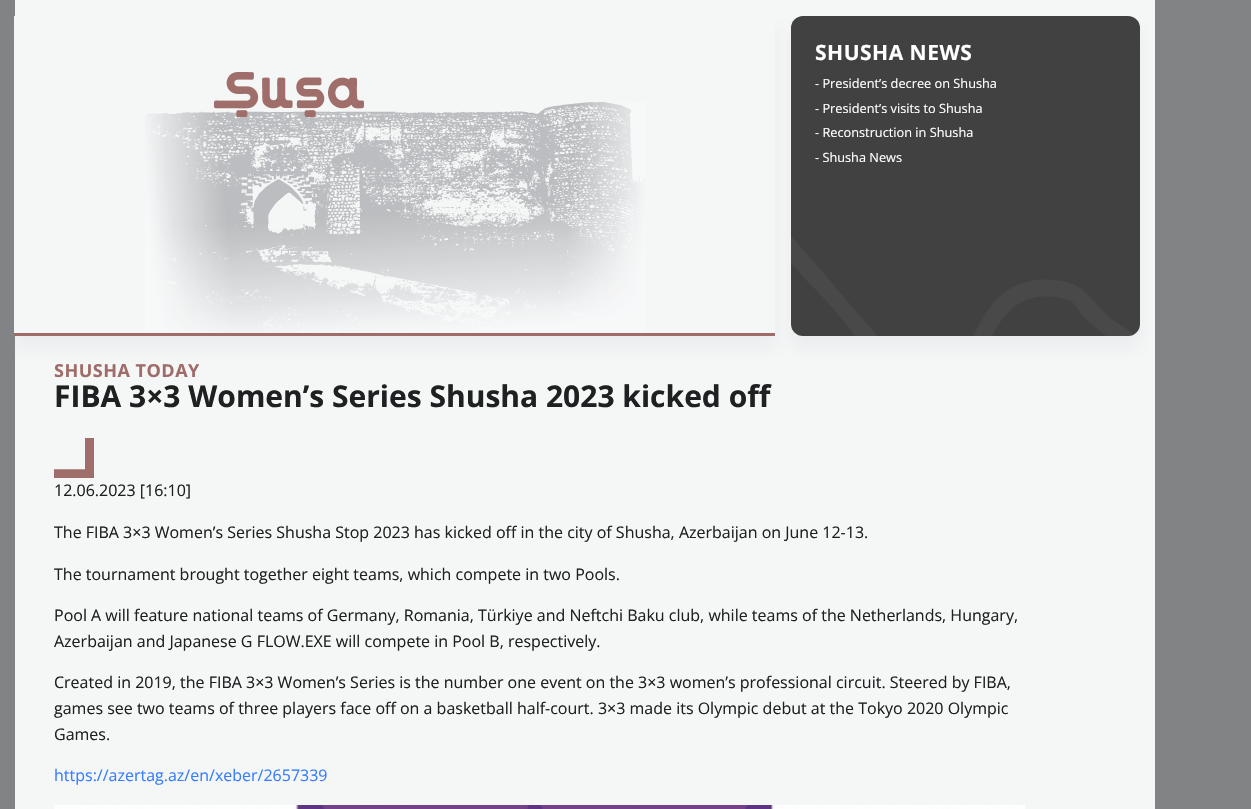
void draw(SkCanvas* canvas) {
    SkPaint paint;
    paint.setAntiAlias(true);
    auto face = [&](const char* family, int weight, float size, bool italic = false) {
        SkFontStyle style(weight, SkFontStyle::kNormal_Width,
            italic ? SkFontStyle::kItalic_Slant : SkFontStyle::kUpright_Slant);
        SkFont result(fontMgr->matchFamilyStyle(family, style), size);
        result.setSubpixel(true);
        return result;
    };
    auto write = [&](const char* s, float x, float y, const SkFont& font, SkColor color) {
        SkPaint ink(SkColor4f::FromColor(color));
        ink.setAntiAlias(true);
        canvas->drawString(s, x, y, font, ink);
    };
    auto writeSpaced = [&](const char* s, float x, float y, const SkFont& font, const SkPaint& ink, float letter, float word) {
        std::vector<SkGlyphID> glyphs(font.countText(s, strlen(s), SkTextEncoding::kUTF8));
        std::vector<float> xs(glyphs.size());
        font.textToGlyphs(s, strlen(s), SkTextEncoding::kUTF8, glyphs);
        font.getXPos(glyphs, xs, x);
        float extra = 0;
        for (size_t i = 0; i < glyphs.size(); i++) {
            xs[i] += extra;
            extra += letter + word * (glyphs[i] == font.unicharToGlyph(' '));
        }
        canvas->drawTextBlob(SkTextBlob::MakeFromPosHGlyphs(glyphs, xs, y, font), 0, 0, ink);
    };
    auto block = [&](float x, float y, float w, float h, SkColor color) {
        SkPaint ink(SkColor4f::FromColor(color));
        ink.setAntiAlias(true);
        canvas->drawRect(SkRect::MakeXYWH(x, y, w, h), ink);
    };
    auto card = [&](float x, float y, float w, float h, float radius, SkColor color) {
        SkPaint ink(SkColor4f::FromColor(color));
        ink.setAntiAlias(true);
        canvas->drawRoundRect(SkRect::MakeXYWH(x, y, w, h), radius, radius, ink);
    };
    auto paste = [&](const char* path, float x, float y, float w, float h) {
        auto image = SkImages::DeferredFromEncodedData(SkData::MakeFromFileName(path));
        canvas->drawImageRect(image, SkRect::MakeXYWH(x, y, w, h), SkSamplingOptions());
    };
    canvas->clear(SkColorSetRGB(129, 131, 133));
    block(15, 0, 1140, 809, SkColorSetRGB(245, 246, 246));
    paint.setColor(SkColorSetARGB(26, 140, 152, 164));
    paint.setMaskFilter(SkMaskFilter::MakeBlur(kNormal_SkBlurStyle, 7.5f));
    canvas->drawRect(SkRect::MakeXYWH(14, 28, 761, 320), paint);
    paint.setMaskFilter(nullptr);
    block(14, 16, 761, 317, SkColorSetRGB(245, 246, 246));
    paste("pic1.png", 145, 102, 500, 231);
    paste("pic2.png", 214, 72, 150, 45);
    block(14, 333, 761, 3, SkColorSetRGB(159, 109, 105));
    paint.setMaskFilter(SkMaskFilter::MakeBlur(kNormal_SkBlurStyle, 7.5f));
    canvas->drawRoundRect(SkRect::MakeXYWH(791, 28, 349, 320), 12, 12, paint);
    paint.setMaskFilter(nullptr);
    card(791, 16, 349, 320, 12, SkColorSetRGB(65, 65, 66));
    paste("pic3.png", 791, 236, 342, 100);
    auto kFont1 = face("Open Sans", 700, 21);
    paint.setColor(SK_ColorWHITE);
    writeSpaced("SHUSHA NEWS", 815, 60, kFont1, paint, 0.5f, 0);
    auto kFont2 = face("Open Sans", 400, 12.75f);
    write("- President’s decree on Shusha", 815, 88, kFont2, SK_ColorWHITE);
    write("- President’s visits to Shusha", 815, 113, kFont2, SK_ColorWHITE);
    write("- Reconstruction in Shusha", 815, 137, kFont2, SK_ColorWHITE);
    write("- Shusha News", 815, 162, kFont2, SK_ColorWHITE);
    auto kFont3 = face("Open Sans", 700, 18);
    paint.setColor(SkColorSetRGB(159, 109, 105));
    writeSpaced("SHUSHA TODAY", 54, 377, kFont3, paint, 0.5f, 0);
    auto kFont4 = face("Open Sans", 700, 30);
    write("FIBA 3×3 Women’s Series Shusha 2023 kicked off", 54, 407, kFont4, SkColorSetRGB(30, 32, 34));
    paste("pic4.png", 54, 438, 40, 40);
    auto kFont5 = face("Open Sans", 400, 16);
    write("12.06.2023 [16:10]", 54, 496, kFont5, SkColorSetRGB(30, 32, 34));
    write("The FIBA 3×3 Women’s Series Shusha Stop 2023 has kicked off in the city of Shusha, Azerbaijan on June 12-13.", 54, 538, kFont5, SkColorSetRGB(30, 32, 34));
    write("The tournament brought together eight teams, which compete in two Pools.", 54, 580, kFont5, SkColorSetRGB(30, 32, 34));
    write("Pool A will feature national teams of Germany, Romania, Türkiye and Neftchi Baku club, while teams of the Netherlands, Hungary,", 54, 621, kFont5, SkColorSetRGB(30, 32, 34));
    write("Azerbaijan and Japanese G FLOW.EXE will compete in Pool B, respectively.", 54, 647, kFont5, SkColorSetRGB(30, 32, 34));
    write("Created in 2019, the FIBA 3×3 Women’s Series is the number one event on the 3×3 women’s professional circuit. Steered by FIBA,", 54, 688, kFont5, SkColorSetRGB(30, 32, 34));
    write("games see two teams of three players face off on a basketball half-court. 3×3 made its Olympic debut at the Tokyo 2020 Olympic", 54, 714, kFont5, SkColorSetRGB(30, 32, 34));
    write("Games.", 54, 740, kFont5, SkColorSetRGB(30, 32, 34));
    write("https://azertag.az/en/xeber/2657339", 54, 781, kFont5, SkColorSetRGB(55, 125, 255));
    paste("pic5.png", 54, 805, 971, 4);
}
